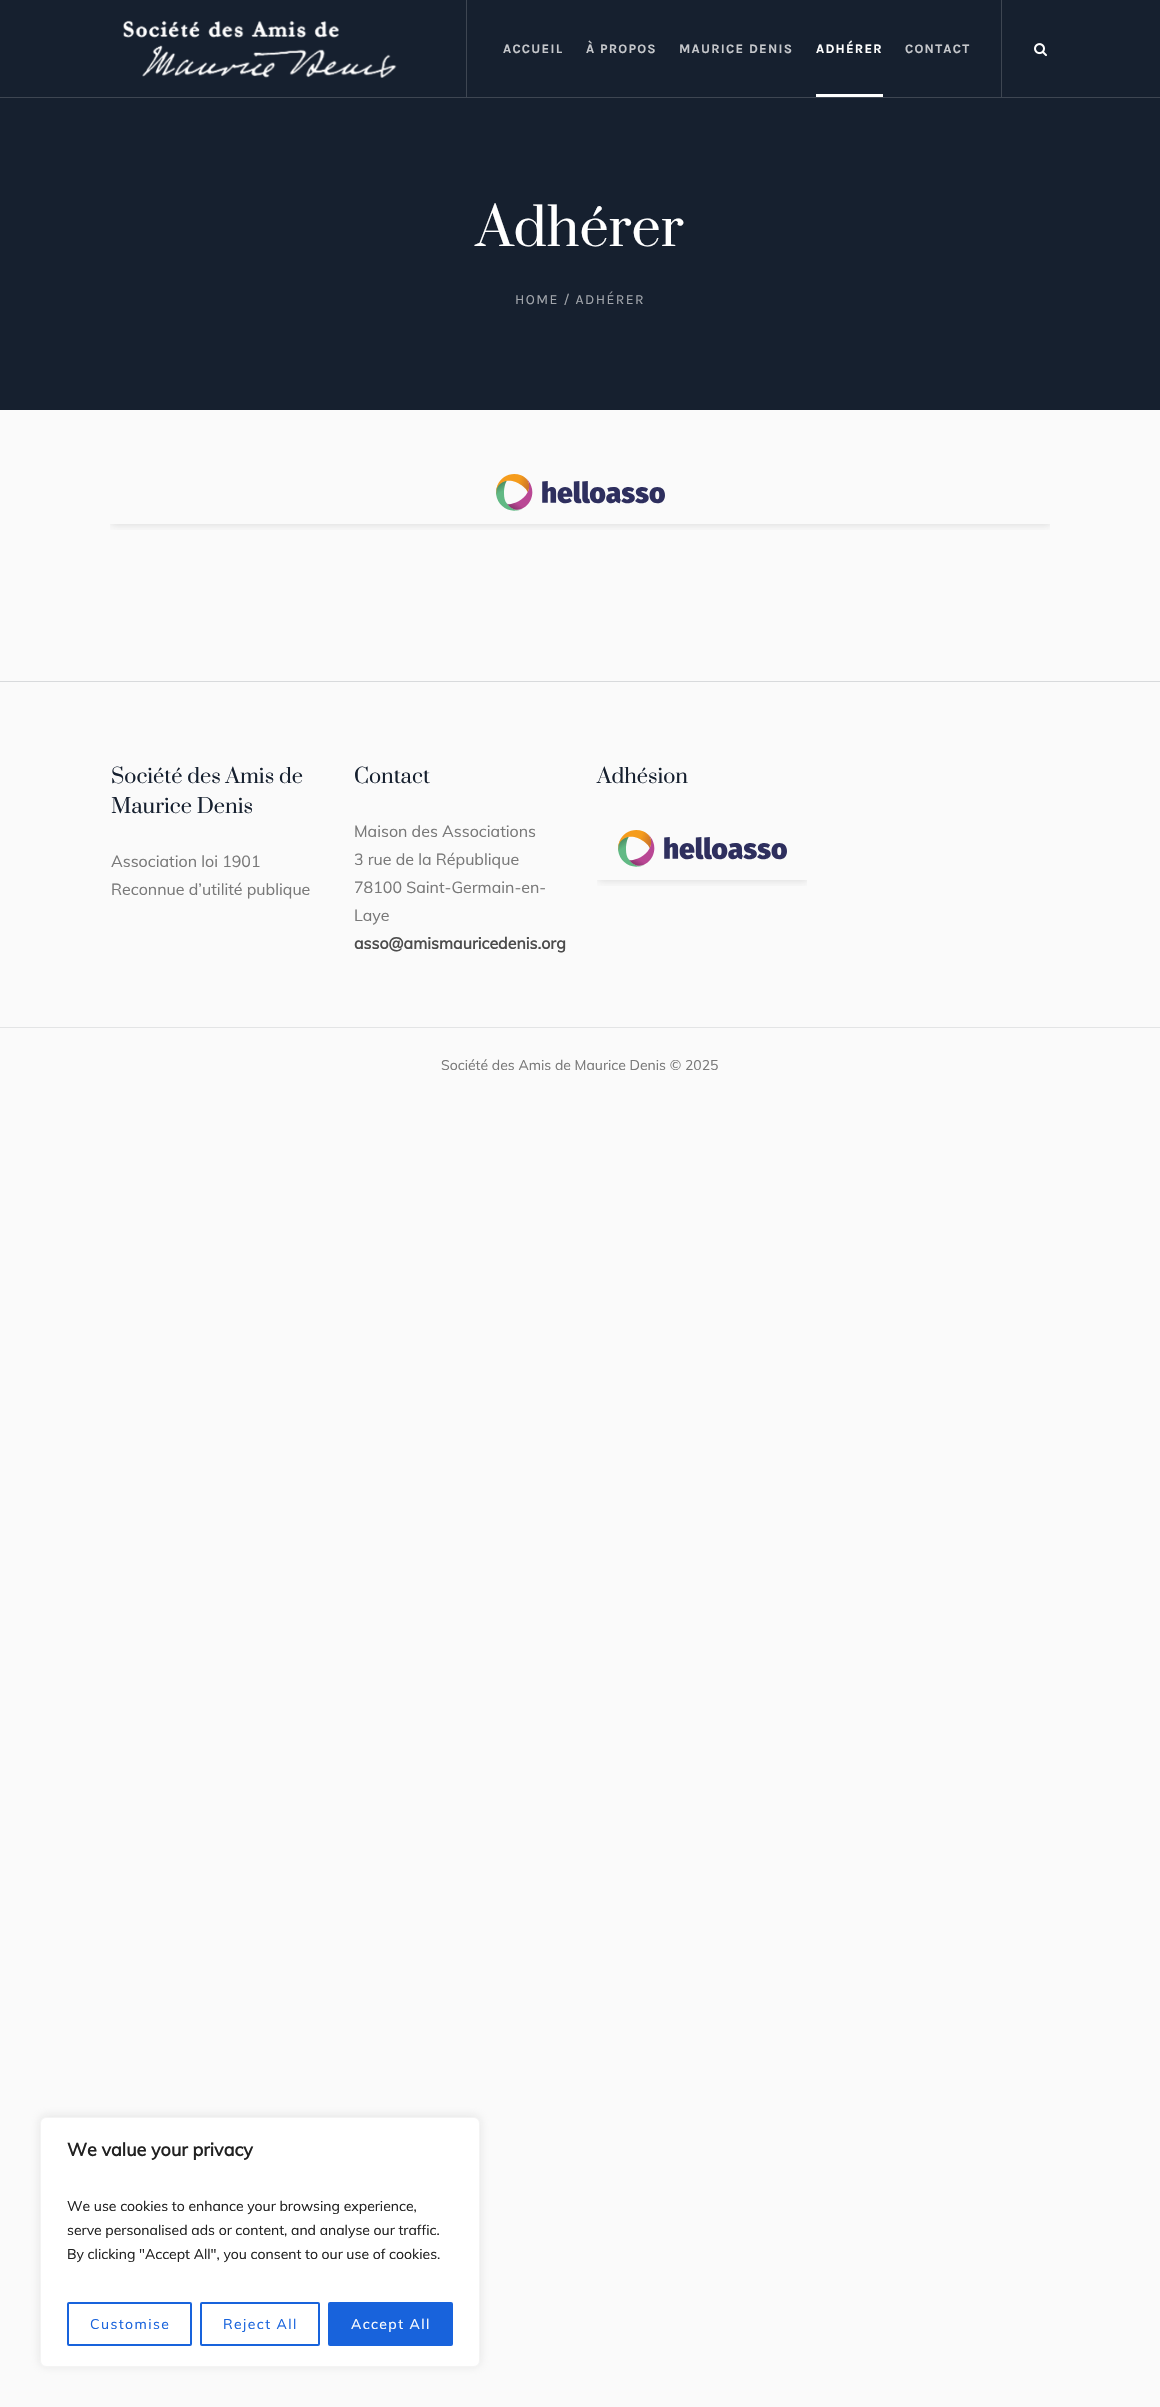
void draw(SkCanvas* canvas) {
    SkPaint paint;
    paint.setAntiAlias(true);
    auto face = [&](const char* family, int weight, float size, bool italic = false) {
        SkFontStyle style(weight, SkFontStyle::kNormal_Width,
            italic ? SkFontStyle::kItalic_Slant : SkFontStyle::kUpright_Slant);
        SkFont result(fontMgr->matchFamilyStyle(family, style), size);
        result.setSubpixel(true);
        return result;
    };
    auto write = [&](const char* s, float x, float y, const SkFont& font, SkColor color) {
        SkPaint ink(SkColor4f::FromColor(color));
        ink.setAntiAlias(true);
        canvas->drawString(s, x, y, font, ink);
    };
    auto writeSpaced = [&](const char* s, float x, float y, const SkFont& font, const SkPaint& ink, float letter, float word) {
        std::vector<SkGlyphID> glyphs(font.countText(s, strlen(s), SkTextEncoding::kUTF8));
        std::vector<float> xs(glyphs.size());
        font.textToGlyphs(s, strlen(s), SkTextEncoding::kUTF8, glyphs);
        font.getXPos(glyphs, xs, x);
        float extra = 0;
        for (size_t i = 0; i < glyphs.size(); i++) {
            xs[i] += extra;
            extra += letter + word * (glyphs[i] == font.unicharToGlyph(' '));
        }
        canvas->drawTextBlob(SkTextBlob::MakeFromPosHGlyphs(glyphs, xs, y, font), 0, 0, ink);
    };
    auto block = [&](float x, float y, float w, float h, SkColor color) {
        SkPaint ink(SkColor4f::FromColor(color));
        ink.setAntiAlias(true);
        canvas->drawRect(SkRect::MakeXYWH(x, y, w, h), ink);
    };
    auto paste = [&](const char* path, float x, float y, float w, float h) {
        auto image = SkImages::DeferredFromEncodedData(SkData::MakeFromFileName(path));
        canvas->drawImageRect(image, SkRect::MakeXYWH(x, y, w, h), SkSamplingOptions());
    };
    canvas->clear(SkColorSetRGB(250, 250, 250));
    block(0, 0, 1160, 410, SkColorSetRGB(22, 32, 47));
    block(0, 97, 1160, 1, SkColorSetRGB(62, 70, 82));
    paste("pic1.png", 123, 20, 274, 58);
    block(466, 0, 1, 97, SkColorSetRGB(62, 70, 82));
    auto kFont1 = face("Karla", 700, 13);
    paint.setColor(SkColorSetRGB(197, 199, 203));
    writeSpaced("ACCUEIL", 503, 53, kFont1, paint, 1.25f, 0);
    writeSpaced("À PROPOS", 586, 53, kFont1, paint, 1.25f, 0);
    writeSpaced("MAURICE DENIS", 679, 53, kFont1, paint, 1.25f, 0);
    paint.setColor(SK_ColorWHITE);
    writeSpaced("ADHÉRER", 816, 53, kFont1, paint, 1.25f, 0);
    block(816, 94, 67, 3, SK_ColorWHITE);
    paint.setColor(SkColorSetRGB(197, 199, 203));
    writeSpaced("CONTACT", 905, 53, kFont1, paint, 1.25f, 0);
    block(1001, 0, 1, 97, SkColorSetRGB(62, 70, 82));
    paste("pic2.png", 1034, 43, 13, 14);
    auto kFont2 = face("Prata", 400, 52);
    write("Adhérer", 476, 246, kFont2, SK_ColorWHITE);
    auto kFont3 = face("Karla", 400, 14);
    paint.setColor(SkColorSetRGB(162, 166, 172));
    writeSpaced("HOME / ADHÉRER", 515, 304, kFont3, paint, 1.4f, 0);
    paste("pic3.png", 110, 474, 940, 56);
    block(0, 681, 1160, 1, SkColorSetRGB(216, 218, 220));
    auto kFont4 = face("Prata", 400, 20);
    write("Société des Amis de", 111, 783, kFont4, SkColorSetRGB(22, 32, 47));
    write("Maurice Denis", 111, 813, kFont4, SkColorSetRGB(22, 32, 47));
    auto kFont5 = face("Muli", 400, 16);
    write("Association loi 1901", 111, 867, kFont5, SkColorSetRGB(121, 121, 121));
    write("Reconnue d’utilité publique", 111, 895, kFont5, SkColorSetRGB(121, 121, 121));
    write("Contact", 354, 783, kFont4, SkColorSetRGB(22, 32, 47));
    write("Maison des Associations", 354, 837, kFont5, SkColorSetRGB(121, 121, 121));
    write("3 rue de la République", 354, 865, kFont5, SkColorSetRGB(121, 121, 121));
    write("78100 Saint-Germain-en-", 354, 893, kFont5, SkColorSetRGB(121, 121, 121));
    write("Laye", 354, 921, kFont5, SkColorSetRGB(121, 121, 121));
    auto kFont6 = face("Muli", 700, 16);
    write("asso@amismauricedenis.org", 354, 949, kFont6, SkColorSetRGB(76, 76, 76));
    write("Adhésion", 597, 783, kFont4, SkColorSetRGB(22, 32, 47));
    paste("pic4.png", 597, 830, 210, 56);
    block(0, 1027, 1160, 1, SkColorSetRGB(227, 228, 229));
    auto kFont7 = face("Muli", 400, 14);
    write("Société des Amis de Maurice Denis © 2025", 441, 1070, kFont7, SkColorSetRGB(121, 121, 121));
    paint.setColor(SkColorSetARGB(77, 172, 171, 171));
    paint.setMaskFilter(SkMaskFilter::MakeBlur(kNormal_SkBlurStyle, 5));
    canvas->drawRoundRect(SkRect::MakeXYWH(40, 2116, 440, 250), 6, 6, paint);
    paint.setMaskFilter(nullptr);
    paint.setColor(SK_ColorWHITE);
    canvas->drawRoundRect(SkRect::MakeXYWH(40.5f, 2117.5f, 439, 249), 5.5f, 5.5f, paint);
    paint.setStyle(SkPaint::kStroke_Style);
    paint.setStrokeWidth(1);
    paint.setColor(SkColorSetRGB(244, 244, 244));
    canvas->drawRoundRect(SkRect::MakeXYWH(40.5f, 2117.5f, 439, 249), 5.5f, 5.5f, paint);
    auto kFont8 = face("Muli", 700, 18);
    write("We value your privacy", 67, 2156, kFont8, SkColorSetRGB(33, 33, 33));
    write("We use cookies to enhance your browsing experience,", 67, 2211, kFont7, SkColorSetRGB(33, 33, 33));
    write("serve personalised ads or content, and analyse our traffic.", 67, 2235, kFont7, SkColorSetRGB(33, 33, 33));
    write("By clicking \"Accept All\", you consent to our use of cookies.", 67, 2259, kFont7, SkColorSetRGB(33, 33, 33));
    paint.setStrokeWidth(2);
    paint.setColor(SkColorSetRGB(24, 99, 220));
    canvas->drawRoundRect(SkRect::MakeXYWH(68, 2303, 123, 42), 1, 1, paint);
    paint.setStyle(SkPaint::kFill_Style);
    writeSpaced("Customise", 90, 2329, kFont7, paint, 1.4f, 0);
    paint.setStyle(SkPaint::kStroke_Style);
    canvas->drawRoundRect(SkRect::MakeXYWH(201, 2303, 118, 42), 1, 1, paint);
    paint.setStyle(SkPaint::kFill_Style);
    writeSpaced("Reject All", 223, 2329, kFont7, paint, 1.4f, 0);
    canvas->drawRoundRect(SkRect::MakeXYWH(329, 2303, 123, 42), 1, 1, paint);
    paint.setStyle(SkPaint::kStroke_Style);
    canvas->drawRoundRect(SkRect::MakeXYWH(329, 2303, 123, 42), 1, 1, paint);
    paint.setStyle(SkPaint::kFill_Style);
    paint.setColor(SK_ColorWHITE);
    writeSpaced("Accept All", 351, 2329, kFont7, paint, 1.4f, 0);
}
